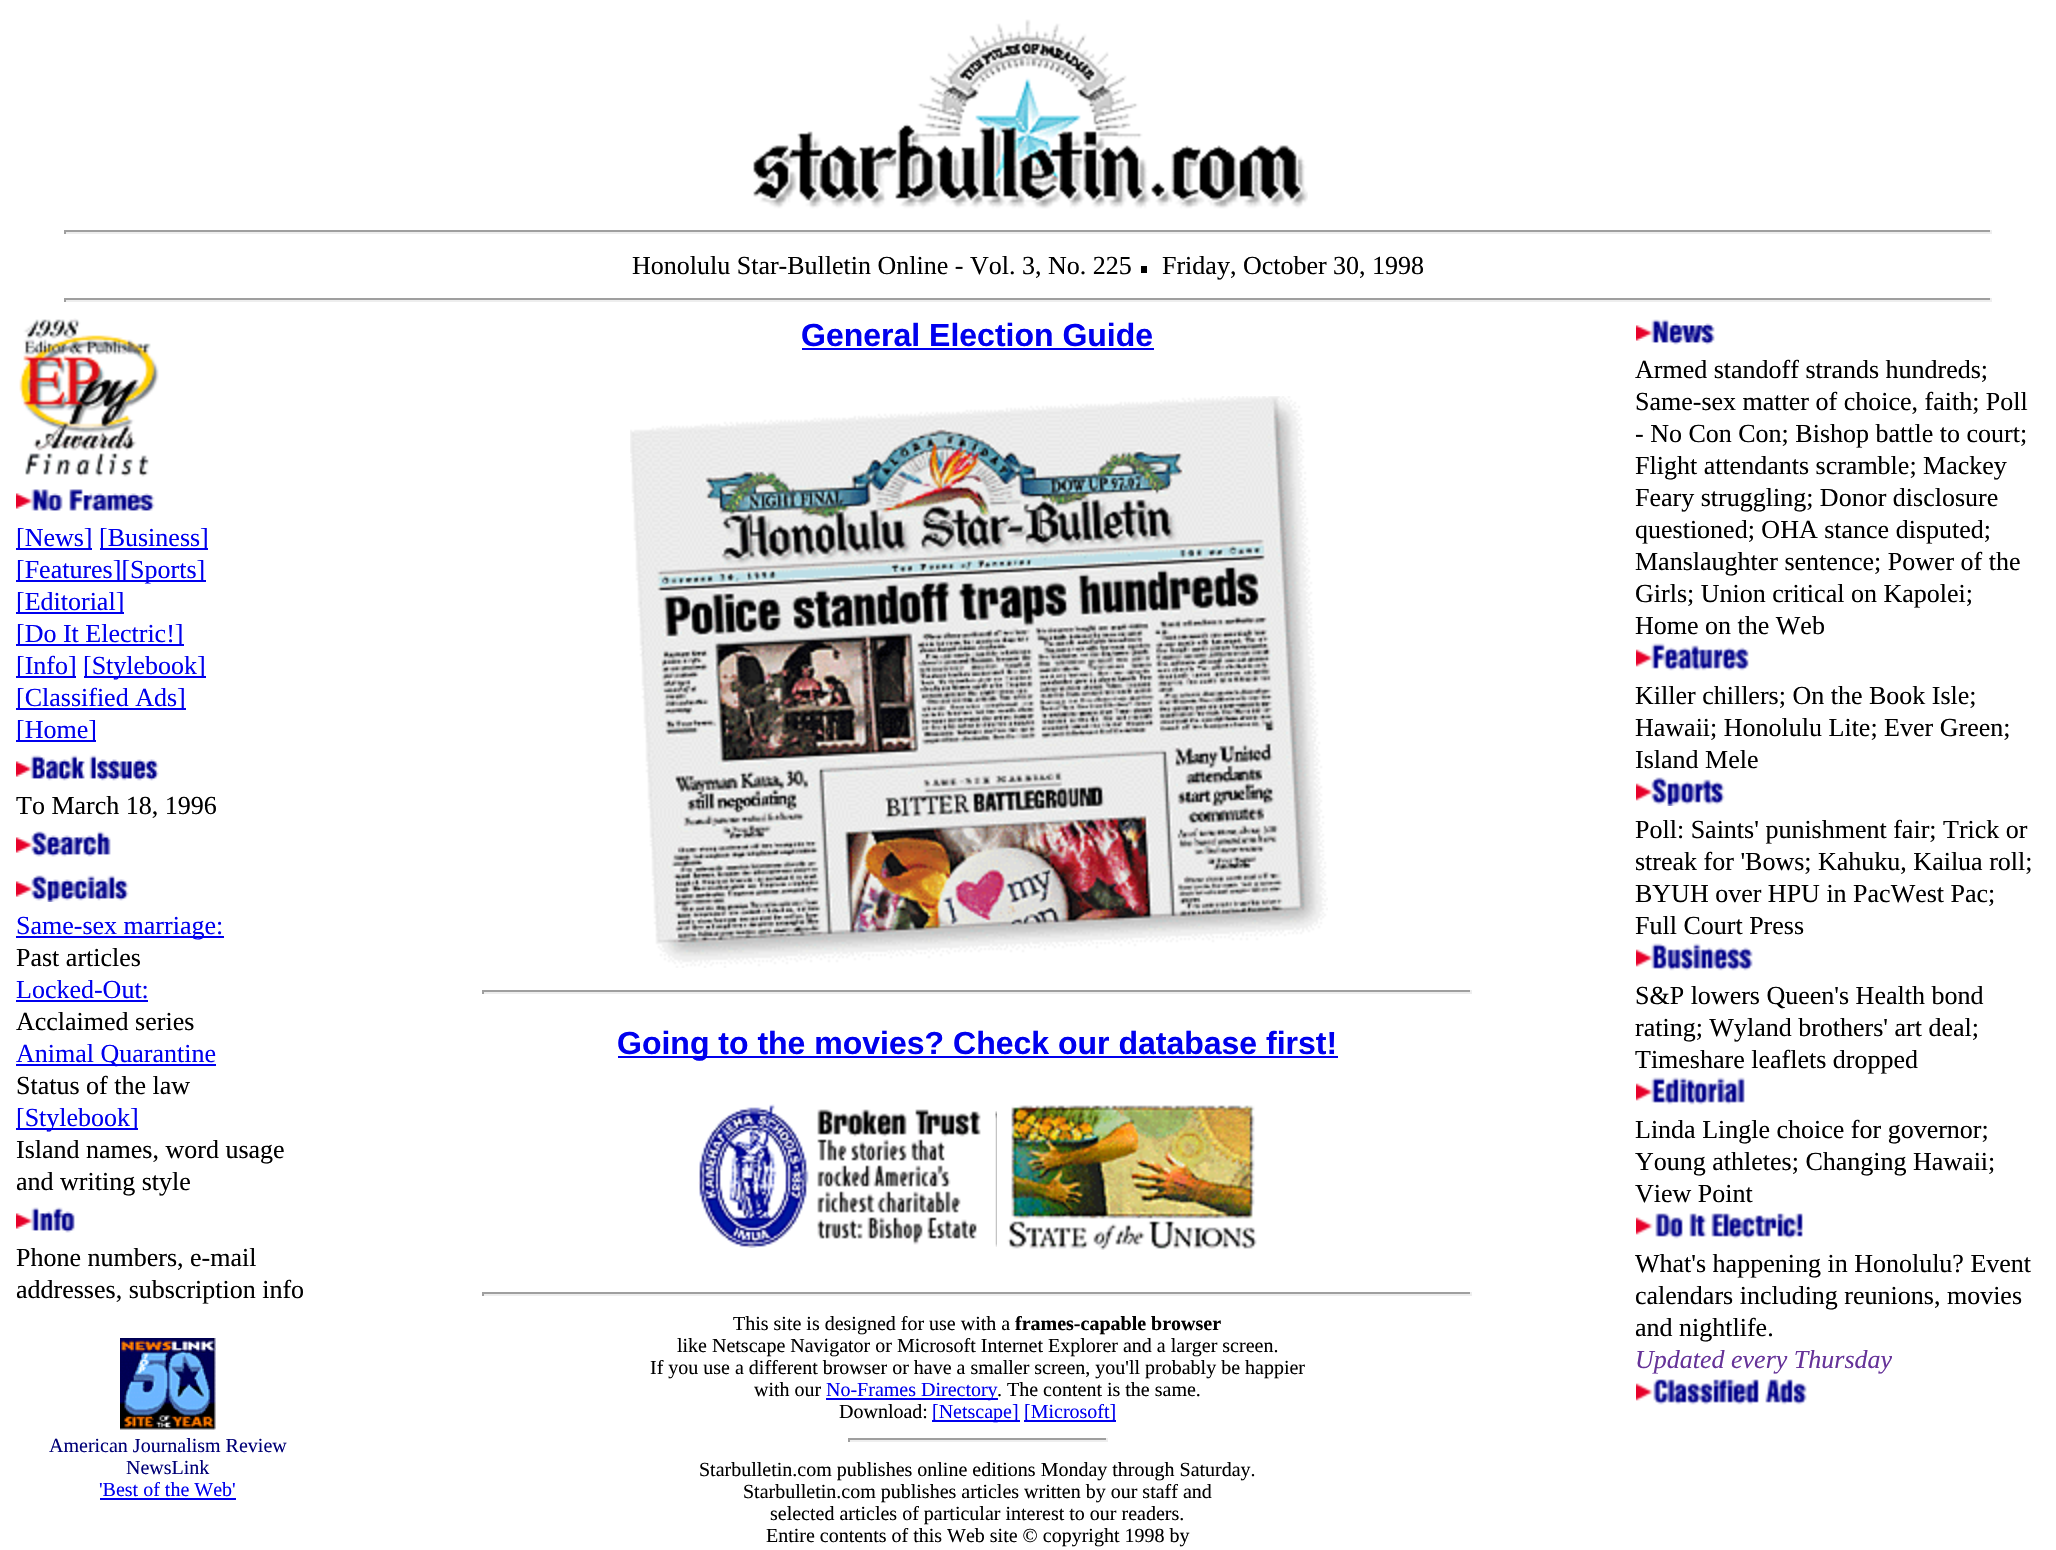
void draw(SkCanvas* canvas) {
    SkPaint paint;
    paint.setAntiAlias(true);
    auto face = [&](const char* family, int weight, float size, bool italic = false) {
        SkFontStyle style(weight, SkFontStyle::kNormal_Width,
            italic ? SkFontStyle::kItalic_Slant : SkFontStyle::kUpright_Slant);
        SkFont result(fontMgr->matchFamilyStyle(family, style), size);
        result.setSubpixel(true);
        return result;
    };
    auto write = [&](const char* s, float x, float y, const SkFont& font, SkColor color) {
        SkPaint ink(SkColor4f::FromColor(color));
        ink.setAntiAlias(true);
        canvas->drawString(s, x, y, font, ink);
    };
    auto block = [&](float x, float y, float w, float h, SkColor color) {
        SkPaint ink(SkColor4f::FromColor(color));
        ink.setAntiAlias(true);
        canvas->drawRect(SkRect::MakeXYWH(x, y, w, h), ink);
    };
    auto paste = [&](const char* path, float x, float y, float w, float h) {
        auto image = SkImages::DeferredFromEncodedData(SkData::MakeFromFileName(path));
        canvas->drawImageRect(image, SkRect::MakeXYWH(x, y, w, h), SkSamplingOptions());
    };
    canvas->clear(SK_ColorWHITE);
    paste("pic1.png", 753, 19, 555, 190);
    block(64, 230, 1928, 2, SkColorSetRGB(159, 159, 159));
    block(1990, 230, 2, 4, SkColorSetRGB(238, 238, 238));
    block(64, 232, 1928, 2, SkColorSetRGB(238, 238, 238));
    block(64, 230, 2, 4, SkColorSetRGB(159, 159, 159));
    auto kFont1 = face("Liberation Serif", 400, 26);
    write("Honolulu Star-Bulletin Online - Vol. 3, No. 225", 632, 274, kFont1, SK_ColorBLACK);
    block(1141, 266, 6, 7, SK_ColorBLACK);
    write("Friday, October 30, 1998", 1162, 274, kFont1, SK_ColorBLACK);
    block(64, 298, 1928, 2, SkColorSetRGB(159, 159, 159));
    block(1990, 298, 2, 4, SkColorSetRGB(238, 238, 238));
    block(64, 300, 1928, 2, SkColorSetRGB(238, 238, 238));
    block(64, 298, 2, 4, SkColorSetRGB(159, 159, 159));
    paste("pic2.png", 19, 318, 140, 159);
    paste("pic3.png", 16, 489, 139, 22);
    block(16, 548, 76, 2, SkColorSetRGB(0, 0, 238));
    write("[News]", 16, 546, kFont1, SkColorSetRGB(0, 0, 238));
    block(100, 548, 108, 2, SkColorSetRGB(0, 0, 238));
    write("[Business]", 99, 546, kFont1, SkColorSetRGB(0, 0, 238));
    block(16, 580, 190, 2, SkColorSetRGB(0, 0, 238));
    write("[Features][Sports]", 16, 578, kFont1, SkColorSetRGB(0, 0, 238));
    block(16, 612, 108, 2, SkColorSetRGB(0, 0, 238));
    write("[Editorial]", 16, 610, kFont1, SkColorSetRGB(0, 0, 238));
    block(16, 644, 168, 2, SkColorSetRGB(0, 0, 238));
    write("[Do It Electric!]", 16, 642, kFont1, SkColorSetRGB(0, 0, 238));
    block(16, 676, 60, 2, SkColorSetRGB(0, 0, 238));
    write("[Info]", 16, 674, kFont1, SkColorSetRGB(0, 0, 238));
    block(84, 676, 122, 2, SkColorSetRGB(0, 0, 238));
    write("[Stylebook]", 83, 674, kFont1, SkColorSetRGB(0, 0, 238));
    block(16, 708, 170, 2, SkColorSetRGB(0, 0, 238));
    write("[Classified Ads]", 16, 706, kFont1, SkColorSetRGB(0, 0, 238));
    block(16, 740, 80, 2, SkColorSetRGB(0, 0, 238));
    write("[Home]", 16, 738, kFont1, SkColorSetRGB(0, 0, 238));
    paste("pic4.png", 16, 755, 143, 26);
    write("To March 18, 1996", 16, 814, kFont1, SK_ColorBLACK);
    paste("pic5.png", 16, 831, 95, 26);
    paste("pic6.png", 16, 875, 113, 27);
    block(16, 936, 208, 2, SkColorSetRGB(0, 0, 238));
    write("Same-sex marriage:", 16, 934, kFont1, SkColorSetRGB(0, 0, 238));
    write("Past articles", 16, 966, kFont1, SK_ColorBLACK);
    write("Locked-Out:", 16, 998, kFont1, SkColorSetRGB(0, 0, 238));
    block(16, 1000, 132, 2, SkColorSetRGB(0, 0, 238));
    write("Acclaimed series", 16, 1030, kFont1, SK_ColorBLACK);
    block(16, 1064, 200, 2, SkColorSetRGB(0, 0, 238));
    write("Animal Quarantine", 16, 1062, kFont1, SkColorSetRGB(0, 0, 238));
    write("Status of the law", 16, 1094, kFont1, SK_ColorBLACK);
    block(16, 1128, 122, 2, SkColorSetRGB(0, 0, 238));
    write("[Stylebook]", 16, 1126, kFont1, SkColorSetRGB(0, 0, 238));
    write("Island names, word usage", 16, 1158, kFont1, SK_ColorBLACK);
    write("and writing style", 16, 1190, kFont1, SK_ColorBLACK);
    paste("pic7.png", 16, 1207, 59, 26);
    write("Phone numbers, e-mail", 16, 1266, kFont1, SK_ColorBLACK);
    write("addresses, subscription info", 16, 1298, kFont1, SK_ColorBLACK);
    paste("pic8.png", 120, 1338, 96, 92);
    auto kFont2 = face("Liberation Serif", 400, 20);
    write("American Journalism Review", 49, 1452, kFont2, SkColorSetRGB(0, 0, 119));
    write("NewsLink", 126, 1474, kFont2, SkColorSetRGB(0, 0, 119));
    write("'Best of the Web'", 99, 1496, kFont2, SkColorSetRGB(0, 0, 238));
    block(100, 1498, 136, 2, SkColorSetRGB(0, 0, 238));
    auto kFont3 = face("Liberation Sans", 700, 32);
    write("General Election Guide", 801, 346, kFont3, SkColorSetRGB(0, 0, 238));
    block(802, 348, 352, 2, SkColorSetRGB(0, 0, 238));
    paste("pic9.png", 630, 396, 698, 572);
    block(482, 990, 990, 2, SkColorSetRGB(159, 159, 159));
    block(1470, 990, 2, 4, SkColorSetRGB(238, 238, 238));
    block(482, 992, 990, 2, SkColorSetRGB(238, 238, 238));
    block(482, 990, 2, 4, SkColorSetRGB(159, 159, 159));
    block(618, 1056, 720, 2, SkColorSetRGB(0, 0, 238));
    write("Going to the movies? Check our database first!", 617, 1054, kFont3, SkColorSetRGB(0, 0, 238));
    paste("pic10.png", 698, 1104, 283, 144);
    paste("pic11.png", 995, 1111, 2, 136);
    paste("pic12.png", 1007, 1105, 250, 145);
    block(482, 1292, 990, 2, SkColorSetRGB(159, 159, 159));
    block(1470, 1292, 2, 4, SkColorSetRGB(238, 238, 238));
    block(482, 1294, 990, 2, SkColorSetRGB(238, 238, 238));
    block(482, 1292, 2, 4, SkColorSetRGB(159, 159, 159));
    write("This site is designed for use with a", 733, 1330, kFont2, SK_ColorBLACK);
    auto kFont4 = face("Liberation Serif", 700, 20);
    write("frames-capable browser", 1015, 1330, kFont4, SK_ColorBLACK);
    write("like Netscape Navigator or Microsoft Internet Explorer and a larger screen.", 677, 1352, kFont2, SK_ColorBLACK);
    write("If you use a different browser or have a smaller screen, you'll probably be happier", 650, 1374, kFont2, SK_ColorBLACK);
    write("with our", 754, 1396, kFont2, SK_ColorBLACK);
    block(826, 1398, 172, 2, SkColorSetRGB(0, 0, 238));
    write("No-Frames Directory", 826, 1396, kFont2, SkColorSetRGB(0, 0, 238));
    write(". The content is the same.", 997, 1396, kFont2, SK_ColorBLACK);
    write("Download:", 839, 1418, kFont2, SK_ColorBLACK);
    block(932, 1420, 88, 2, SkColorSetRGB(0, 0, 238));
    write("[Netscape]", 932, 1418, kFont2, SkColorSetRGB(0, 0, 238));
    block(1024, 1420, 92, 2, SkColorSetRGB(0, 0, 238));
    write("[Microsoft]", 1024, 1418, kFont2, SkColorSetRGB(0, 0, 238));
    block(848, 1438, 260, 2, SkColorSetRGB(159, 159, 159));
    block(1106, 1438, 2, 4, SkColorSetRGB(238, 238, 238));
    block(848, 1440, 260, 2, SkColorSetRGB(238, 238, 238));
    block(848, 1438, 2, 4, SkColorSetRGB(159, 159, 159));
    write("Starbulletin.com publishes online editions Monday through Saturday.", 699, 1476, kFont2, SK_ColorBLACK);
    write("Starbulletin.com publishes articles written by our staff and", 743, 1498, kFont2, SK_ColorBLACK);
    write("selected articles of particular interest to our readers.", 770, 1520, kFont2, SK_ColorBLACK);
    write("Entire contents of this Web site © copyright 1998 by", 766, 1542, kFont2, SK_ColorBLACK);
    paste("pic13.png", 1636, 319, 79, 26);
    write("Armed standoff strands hundreds;", 1635, 378, kFont1, SK_ColorBLACK);
    write("Same-sex matter of choice, faith; Poll", 1635, 410, kFont1, SK_ColorBLACK);
    write("- No Con Con; Bishop battle to court;", 1635, 442, kFont1, SK_ColorBLACK);
    write("Flight attendants scramble; Mackey", 1635, 474, kFont1, SK_ColorBLACK);
    write("Feary struggling; Donor disclosure", 1635, 506, kFont1, SK_ColorBLACK);
    write("questioned; OHA stance disputed;", 1635, 538, kFont1, SK_ColorBLACK);
    write("Manslaughter sentence; Power of the", 1635, 570, kFont1, SK_ColorBLACK);
    write("Girls; Union critical on Kapolei;", 1635, 602, kFont1, SK_ColorBLACK);
    write("Home on the Web", 1635, 634, kFont1, SK_ColorBLACK);
    paste("pic14.png", 1636, 643, 113, 28);
    write("Killer chillers; On the Book Isle;", 1635, 704, kFont1, SK_ColorBLACK);
    write("Hawaii; Honolulu Lite; Ever Green;", 1635, 736, kFont1, SK_ColorBLACK);
    write("Island Mele", 1635, 768, kFont1, SK_ColorBLACK);
    paste("pic15.png", 1636, 777, 89, 29);
    write("Poll: Saints' punishment fair; Trick or", 1635, 838, kFont1, SK_ColorBLACK);
    write("streak for 'Bows; Kahuku, Kailua roll;", 1635, 870, kFont1, SK_ColorBLACK);
    write("BYUH over HPU in PacWest Pac;", 1635, 902, kFont1, SK_ColorBLACK);
    write("Full Court Press", 1635, 934, kFont1, SK_ColorBLACK);
    paste("pic16.png", 1636, 943, 117, 28);
    write("S&P lowers Queen's Health bond", 1635, 1004, kFont1, SK_ColorBLACK);
    write("rating; Wyland brothers' art deal;", 1635, 1036, kFont1, SK_ColorBLACK);
    write("Timeshare leaflets dropped", 1635, 1068, kFont1, SK_ColorBLACK);
    paste("pic17.png", 1636, 1077, 109, 28);
    write("Linda Lingle choice for governor;", 1635, 1138, kFont1, SK_ColorBLACK);
    write("Young athletes; Changing Hawaii;", 1635, 1170, kFont1, SK_ColorBLACK);
    write("View Point", 1635, 1202, kFont1, SK_ColorBLACK);
    paste("pic18.png", 1636, 1213, 167, 26);
    write("What's happening in Honolulu? Event", 1635, 1272, kFont1, SK_ColorBLACK);
    write("calendars including reunions, movies", 1635, 1304, kFont1, SK_ColorBLACK);
    write("and nightlife.", 1635, 1336, kFont1, SK_ColorBLACK);
    auto kFont5 = face("Liberation Serif", 400, 26, true);
    write("Updated every Thursday", 1635, 1368, kFont5, SkColorSetRGB(102, 51, 153));
    paste("pic19.png", 1636, 1379, 171, 26);
}
